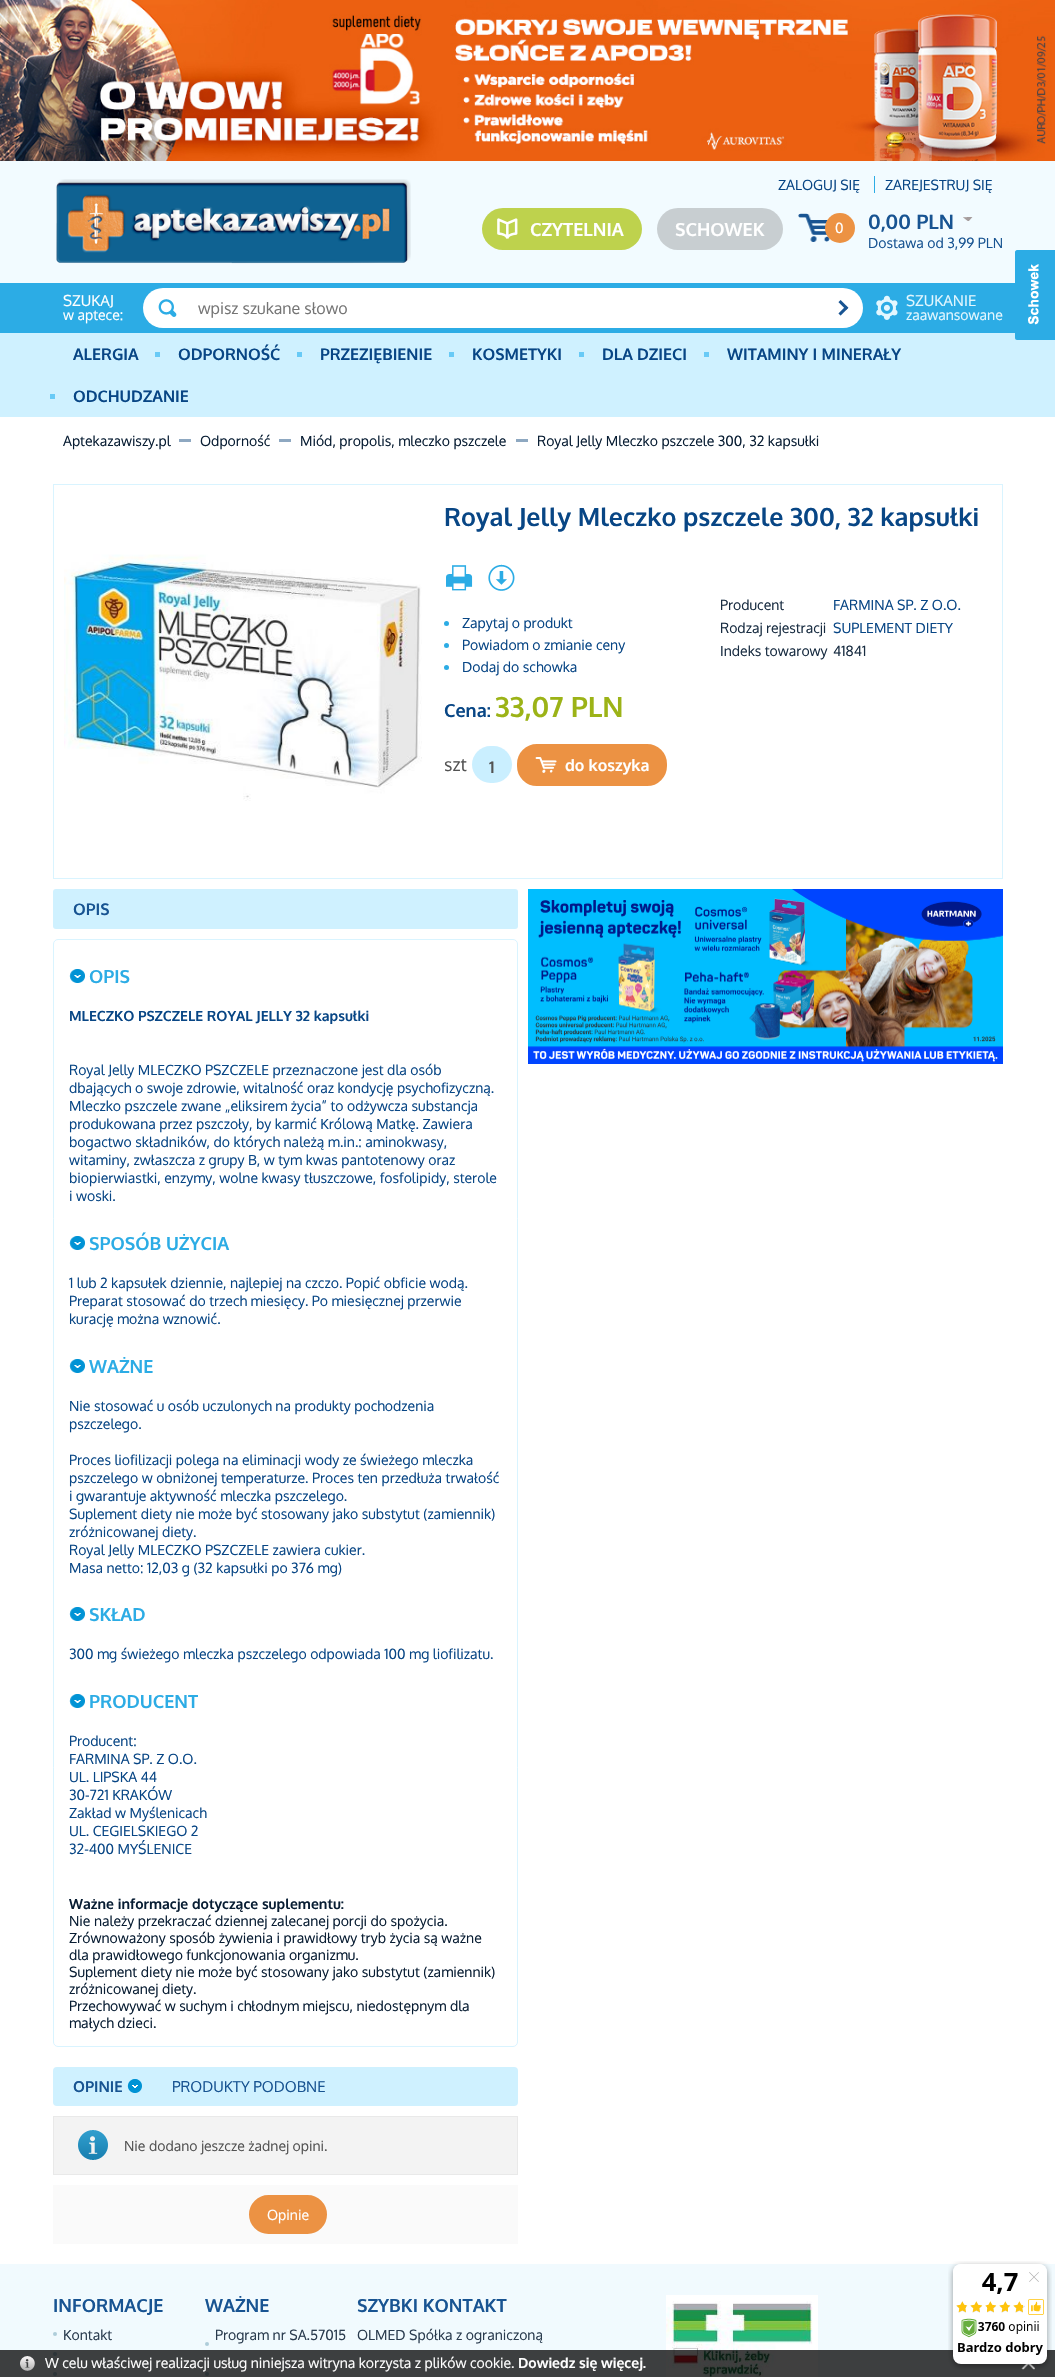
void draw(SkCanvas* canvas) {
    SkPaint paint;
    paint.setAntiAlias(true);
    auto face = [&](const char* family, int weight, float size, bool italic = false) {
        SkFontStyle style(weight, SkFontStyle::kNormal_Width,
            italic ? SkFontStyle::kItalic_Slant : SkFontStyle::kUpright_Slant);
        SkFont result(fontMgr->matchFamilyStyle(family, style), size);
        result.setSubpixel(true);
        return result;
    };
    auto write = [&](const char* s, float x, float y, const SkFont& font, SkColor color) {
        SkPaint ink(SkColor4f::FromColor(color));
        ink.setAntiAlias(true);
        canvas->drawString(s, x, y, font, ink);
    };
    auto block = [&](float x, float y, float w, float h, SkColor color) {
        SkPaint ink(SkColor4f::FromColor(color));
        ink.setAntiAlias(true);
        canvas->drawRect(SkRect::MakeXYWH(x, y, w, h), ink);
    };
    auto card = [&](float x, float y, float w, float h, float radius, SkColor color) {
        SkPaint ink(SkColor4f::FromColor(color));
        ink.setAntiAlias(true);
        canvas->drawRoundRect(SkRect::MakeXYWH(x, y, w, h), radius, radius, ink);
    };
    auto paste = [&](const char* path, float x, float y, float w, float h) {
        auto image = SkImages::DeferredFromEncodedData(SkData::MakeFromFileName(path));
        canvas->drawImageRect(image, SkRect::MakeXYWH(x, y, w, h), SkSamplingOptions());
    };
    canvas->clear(SK_ColorWHITE);
    paste("pic1.png", 0, 0, 1055, 161);
    block(0, 161, 1055, 122, SkColorSetRGB(242, 251, 255));
    paste("pic2.png", 56, 179, 355, 85);
    auto kFont1 = face("Oxygen", 400, 14);
    write("ZALOGUJ SIĘ", 778, 190, kFont1, SkColorSetRGB(8, 70, 133));
    block(874, 176, 1, 17, SkColorSetRGB(44, 172, 229));
    write("ZAREJESTRUJ SIĘ", 885, 190, kFont1, SkColorSetRGB(8, 70, 133));
    card(482, 208, 160, 42, 21, SkColorSetRGB(190, 210, 77));
    paste("pic3.png", 497, 218, 21, 21);
    auto kFont2 = face("Oxygen", 700, 18);
    write("CZYTELNIA", 530, 236, kFont2, SK_ColorWHITE);
    card(657, 208, 126, 42, 21, SkColorSetRGB(200, 206, 209));
    write("SCHOWEK", 675, 236, kFont2, SK_ColorWHITE);
    paste("pic4.png", 798, 213, 32, 29);
    paint.setColor(SkColorSetRGB(236, 146, 67));
    canvas->drawCircle(840, 228, 15, paint);
    write("0", 835, 233, kFont1, SK_ColorWHITE);
    auto kFont3 = face("Oxygen", 700, 20);
    write("0,00 PLN", 868, 229, kFont3, SkColorSetRGB(24, 84, 146));
    paste("pic5.png", 963, 217, 10, 4);
    write("Dostawa od 3,99 PLN", 868, 248, kFont1, SkColorSetRGB(24, 84, 146));
    block(0, 283, 1015, 50, SkColorSetRGB(44, 172, 229));
    auto kFont4 = face("Oxygen", 400, 15);
    write("SZUKAJ", 63, 306, kFont4, SK_ColorWHITE);
    write("w aptece:", 63, 320, kFont1, SK_ColorWHITE);
    card(143, 288, 720, 40, 20, SK_ColorWHITE);
    paste("pic6.png", 158, 299, 19, 18);
    auto kFont5 = face("Oxygen", 400, 16);
    write("wpisz szukane słowo", 198, 314, kFont5, SkColorSetRGB(117, 117, 117));
    paste("pic7.png", 838, 300, 11, 16);
    paste("pic8.png", 876, 295, 22, 25);
    write("SZUKANIE", 906, 306, kFont4, SkColorSetRGB(227, 247, 255));
    write("zaawansowane", 906, 320, kFont1, SkColorSetRGB(227, 247, 255));
    block(0, 333, 1055, 84, SkColorSetRGB(207, 241, 255));
    auto kFont6 = face("Oxygen", 700, 16);
    write("ALERGIA", 73, 360, kFont6, SkColorSetRGB(8, 70, 133));
    block(155, 352, 5, 5, SkColorSetRGB(104, 202, 246));
    write("ODPORNOŚĆ", 178, 360, kFont6, SkColorSetRGB(8, 70, 133));
    block(297, 352, 5, 5, SkColorSetRGB(104, 202, 246));
    write("PRZEZIĘBIENIE", 320, 360, kFont6, SkColorSetRGB(8, 70, 133));
    block(449, 352, 5, 5, SkColorSetRGB(104, 202, 246));
    write("KOSMETYKI", 472, 360, kFont6, SkColorSetRGB(8, 70, 133));
    block(579, 352, 5, 5, SkColorSetRGB(104, 202, 246));
    write("DLA DZIECI", 602, 360, kFont6, SkColorSetRGB(8, 70, 133));
    block(704, 352, 5, 5, SkColorSetRGB(104, 202, 246));
    write("WITAMINY I MINERAŁY", 727, 360, kFont6, SkColorSetRGB(8, 70, 133));
    block(50, 394, 5, 5, SkColorSetRGB(104, 202, 246));
    write("ODCHUDZANIE", 73, 402, kFont6, SkColorSetRGB(8, 70, 133));
    write("Aptekazawiszy.pl", 63, 446, kFont1, SkColorSetRGB(8, 29, 51));
    block(179, 439, 12, 3, SkColorSetRGB(142, 168, 193));
    write("Odporność", 200, 446, kFont1, SkColorSetRGB(8, 29, 51));
    block(279, 439, 12, 3, SkColorSetRGB(142, 168, 193));
    write("Miód, propolis, mleczko pszczele", 300, 446, kFont1, SkColorSetRGB(8, 29, 51));
    block(516, 439, 12, 3, SkColorSetRGB(142, 168, 193));
    write("Royal Jelly Mleczko pszczele 300, 32 kapsułki", 537, 446, kFont1, SkColorSetRGB(8, 29, 51));
    paint.setColor(SkColorSetRGB(44, 172, 229));
    canvas->drawPath(SkPathBuilder().moveTo(1017, 250).lineTo(1055, 250).lineTo(1055, 340).lineTo(1017, 340).cubicTo(1016, 340, 1015, 339, 1015, 338).lineTo(1015, 252).cubicTo(1015, 251, 1016, 250, 1017, 250).close().detach(), paint);
    paste("pic9.png", 1028, 264, 11, 61);
    paint.setStyle(SkPaint::kStroke_Style);
    paint.setStrokeWidth(1);
    paint.setColor(SkColorSetRGB(217, 244, 255));
    canvas->drawRect(SkRect::MakeXYWH(53.5f, 484.5f, 949, 394), paint);
    paste("pic10.png", 64, 554, 358, 247);
    auto kFont7 = face("Oxygen", 700, 25);
    write("Royal Jelly Mleczko pszczele 300, 32 kapsułki", 444, 526, kFont7, SkColorSetRGB(8, 70, 133));
    paste("pic11.png", 446, 565, 27, 26);
    paste("pic12.png", 488, 564, 27, 27);
    paint.setStyle(SkPaint::kFill_Style);
    paint.setColor(SkColorSetRGB(44, 172, 229));
    canvas->drawCircle(446.5f, 623.5f, 2.5f, paint);
    write("Zapytaj o produkt", 462, 628, kFont1, SkColorSetRGB(8, 70, 133));
    canvas->drawCircle(446.5f, 645.5f, 2.5f, paint);
    write("Powiadom o zmianie ceny", 462, 650, kFont1, SkColorSetRGB(8, 70, 133));
    canvas->drawCircle(446.5f, 667.5f, 2.5f, paint);
    write("Dodaj do schowka", 462, 672, kFont1, SkColorSetRGB(8, 70, 133));
    write("Cena:", 444, 717, kFont2, SkColorSetRGB(8, 70, 133));
    auto kFont8 = face("Oxygen", 700, 28);
    write("33,07 PLN", 495, 717, kFont8, SkColorSetRGB(156, 179, 23));
    auto kFont9 = face("Oxygen", 400, 18);
    write("szt", 444, 771, kFont9, SkColorSetRGB(83, 83, 83));
    card(472, 746, 40, 37, 18.5f, SkColorSetRGB(202, 239, 255));
    write("1", 489, 773, kFont6, SkColorSetRGB(83, 83, 83));
    paint.setColor(SkColorSetRGB(236, 146, 67));
    canvas->drawRoundRect(SkRect::MakeXYWH(518.5f, 745.5f, 147, 39), 18.5f, 18.5f, paint);
    paint.setStyle(SkPaint::kStroke_Style);
    paint.setStrokeWidth(3);
    canvas->drawRoundRect(SkRect::MakeXYWH(518.5f, 745.5f, 147, 39), 18.5f, 18.5f, paint);
    paste("pic13.png", 535, 757, 22, 16);
    write("do koszyka", 565, 771, kFont6, SK_ColorWHITE);
    write("Producent", 720, 610, kFont1, SkColorSetRGB(24, 44, 65));
    write("FARMINA SP. Z O.O.", 833, 610, kFont1, SkColorSetRGB(8, 70, 133));
    write("Rodzaj rejestracji", 720, 633, kFont1, SkColorSetRGB(24, 44, 65));
    write("SUPLEMENT DIETY", 833, 633, kFont1, SkColorSetRGB(8, 70, 133));
    write("Indeks towarowy", 720, 656, kFont1, SkColorSetRGB(24, 44, 65));
    write("41841", 833, 656, kFont1, SkColorSetRGB(24, 44, 65));
    card(53, 889, 465, 40, 3, SkColorSetRGB(207, 241, 255));
    write("OPIS", 73, 915, kFont6, SkColorSetRGB(24, 84, 146));
    paint.setStrokeWidth(1);
    paint.setColor(SkColorSetRGB(217, 244, 255));
    canvas->drawRoundRect(SkRect::MakeXYWH(53.5f, 939.5f, 464, 1107), 4.5f, 4.5f, paint);
    paste("pic14.png", 69, 969, 16, 14);
    write("OPIS", 89, 983, kFont2, SkColorSetRGB(44, 172, 229));
    auto kFont10 = face("Oxygen", 700, 14);
    write("MLECZKO PSZCZELE ROYAL JELLY 32 kapsułki", 69, 1021, kFont10, SkColorSetRGB(8, 70, 133));
    write("Royal Jelly MLECZKO PSZCZELE przeznaczone jest dla osób", 69, 1075, kFont1, SkColorSetRGB(8, 70, 133));
    write("dbających o swoje zdrowie, witalność oraz kondycję psychofizyczną.", 69, 1093, kFont1, SkColorSetRGB(8, 70, 133));
    write("Mleczko pszczele zwane „eliksirem życia” to odżywcza substancja", 69, 1111, kFont1, SkColorSetRGB(8, 70, 133));
    write("produkowana przez pszczoły, by karmić Królową Matkę. Zawiera", 69, 1129, kFont1, SkColorSetRGB(8, 70, 133));
    write("bogactwo składników, do których należą m.in.: aminokwasy,", 69, 1147, kFont1, SkColorSetRGB(8, 70, 133));
    write("witaminy, zwłaszcza z grupy B, w tym kwas pantotenowy oraz", 69, 1165, kFont1, SkColorSetRGB(8, 70, 133));
    write("biopierwiastki, enzymy, wolne kwasy tłuszczowe, fosfolipidy, sterole", 69, 1183, kFont1, SkColorSetRGB(8, 70, 133));
    write("i woski.", 69, 1201, kFont1, SkColorSetRGB(8, 70, 133));
    paste("pic14.png", 69, 1236, 16, 14);
    write("SPOSÓB UŻYCIA", 89, 1250, kFont2, SkColorSetRGB(44, 172, 229));
    write("1 lub 2 kapsułek dziennie, najlepiej na czczo. Popić obficie wodą.", 69, 1288, kFont1, SkColorSetRGB(8, 70, 133));
    write("Preparat stosować do trzech miesięcy. Po miesięcznej przerwie", 69, 1306, kFont1, SkColorSetRGB(8, 70, 133));
    write("kurację można wznowić.", 69, 1324, kFont1, SkColorSetRGB(8, 70, 133));
    paste("pic14.png", 69, 1359, 16, 14);
    write("WAŻNE", 89, 1373, kFont2, SkColorSetRGB(44, 172, 229));
    write("Nie stosować u osób uczulonych na produkty pochodzenia", 69, 1411, kFont1, SkColorSetRGB(8, 70, 133));
    write("pszczelego.", 69, 1429, kFont1, SkColorSetRGB(8, 70, 133));
    write("Proces liofilizacji polega na eliminacji wody ze świeżego mleczka", 69, 1465, kFont1, SkColorSetRGB(8, 70, 133));
    write("pszczelego w obniżonej temperaturze. Proces ten przedłuża trwałość", 69, 1483, kFont1, SkColorSetRGB(8, 70, 133));
    write("i gwarantuje aktywność mleczka pszczelego.", 69, 1501, kFont1, SkColorSetRGB(8, 70, 133));
    write("Suplement diety nie może być stosowany jako substytut (zamiennik)", 69, 1519, kFont1, SkColorSetRGB(8, 70, 133));
    write("zróżnicowanej diety.", 69, 1537, kFont1, SkColorSetRGB(8, 70, 133));
    write("Royal Jelly MLECZKO PSZCZELE zawiera cukier.", 69, 1555, kFont1, SkColorSetRGB(8, 70, 133));
    write("Masa netto: 12,03 g (32 kapsułki po 376 mg)", 69, 1573, kFont1, SkColorSetRGB(8, 70, 133));
    paste("pic14.png", 69, 1607, 16, 14);
    write("SKŁAD", 89, 1621, kFont2, SkColorSetRGB(44, 172, 229));
    write("300 mg świeżego mleczka pszczelego odpowiada 100 mg liofilizatu.", 69, 1659, kFont1, SkColorSetRGB(8, 70, 133));
    paste("pic14.png", 69, 1694, 16, 14);
    write("PRODUCENT", 89, 1708, kFont2, SkColorSetRGB(44, 172, 229));
    write("Producent:", 69, 1746, kFont1, SkColorSetRGB(8, 70, 133));
    write("FARMINA SP. Z O.O.", 69, 1764, kFont1, SkColorSetRGB(8, 70, 133));
    write("UL. LIPSKA 44", 69, 1782, kFont1, SkColorSetRGB(8, 70, 133));
    write("30-721 KRAKÓW", 69, 1800, kFont1, SkColorSetRGB(8, 70, 133));
    write("Zakład w Myślenicach", 69, 1818, kFont1, SkColorSetRGB(8, 70, 133));
    write("UL. CEGIELSKIEGO 2", 69, 1836, kFont1, SkColorSetRGB(8, 70, 133));
    write("32-400 MYŚLENICE", 69, 1854, kFont1, SkColorSetRGB(8, 70, 133));
    write("Ważne informacje dotyczące suplementu:", 69, 1909, kFont10, SkColorSetRGB(8, 29, 51));
    write("Nie należy przekraczać dziennej zalecanej porcji do spożycia.", 69, 1926, kFont1, SkColorSetRGB(8, 29, 51));
    write("Zrównoważony sposób żywienia i prawidłowy tryb życia są ważne", 69, 1943, kFont1, SkColorSetRGB(8, 29, 51));
    write("dla prawidłowego funkcjonowania organizmu.", 69, 1960, kFont1, SkColorSetRGB(8, 29, 51));
    write("Suplement diety nie może być stosowany jako substytut (zamiennik)", 69, 1977, kFont1, SkColorSetRGB(8, 29, 51));
    write("zróżnicowanej diety.", 69, 1994, kFont1, SkColorSetRGB(8, 29, 51));
    write("Przechowywać w suchym i chłodnym miejscu, niedostępnym dla", 69, 2011, kFont1, SkColorSetRGB(8, 29, 51));
    write("małych dzieci.", 69, 2028, kFont1, SkColorSetRGB(8, 29, 51));
    card(53, 2067, 465, 39, 4, SkColorSetRGB(207, 241, 255));
    paste("pic15.png", 127, 2079, 15, 14);
    auto kFont11 = face("Oxygen", 700, 15);
    write("OPINIE", 73, 2092, kFont11, SkColorSetRGB(24, 84, 146));
    write("PRODUKTY PODOBNE", 172, 2092, kFont4, SkColorSetRGB(24, 84, 146));
    block(54, 2117, 463, 57, SkColorSetRGB(243, 243, 243));
    paste("pic16.png", 78, 2130, 30, 30);
    paint.setColor(SkColorSetRGB(233, 233, 233));
    canvas->drawRect(SkRect::MakeXYWH(53.5f, 2116.5f, 464, 58), paint);
    write("Nie dodano jeszcze żadnej opini.", 124, 2151, kFont1, SkColorSetRGB(83, 83, 83));
    block(53, 2185, 465, 59, SkColorSetRGB(250, 250, 250));
    paint.setStyle(SkPaint::kFill_Style);
    paint.setColor(SkColorSetRGB(236, 146, 67));
    canvas->drawRoundRect(SkRect::MakeXYWH(250.5f, 2196.5f, 75, 36), 18, 18, paint);
    paint.setStyle(SkPaint::kStroke_Style);
    paint.setStrokeWidth(3);
    canvas->drawRoundRect(SkRect::MakeXYWH(250.5f, 2196.5f, 75, 36), 18, 18, paint);
    write("Opinie", 267, 2220, kFont1, SK_ColorWHITE);
    paste("pic17.png", 528, 889, 475, 175);
    block(0, 2264, 1055, 113, SkColorSetRGB(241, 250, 254));
    write("INFORMACJE", 53, 2312, kFont2, SkColorSetRGB(24, 84, 146));
    paint.setStyle(SkPaint::kFill_Style);
    paint.setColor(SkColorSetRGB(174, 205, 218));
    canvas->drawCircle(55, 2334, 2, paint);
    write("Kontakt", 63, 2340, kFont1, SkColorSetRGB(41, 59, 78));
    canvas->drawCircle(55, 2354, 2, paint);
    canvas->drawCircle(55, 2374, 2, paint);
    write("WAŻNE", 205, 2312, kFont2, SkColorSetRGB(24, 84, 146));
    canvas->drawCircle(207, 2344, 2, paint);
    write("Program nr SA.57015", 215, 2340, kFont1, SkColorSetRGB(41, 59, 78));
    canvas->drawCircle(207, 2374, 2, paint);
    write("SZYBKI KONTAKT", 357, 2312, kFont2, SkColorSetRGB(24, 84, 146));
    write("OLMED Spółka z ograniczoną", 357, 2340, kFont1, SkColorSetRGB(41, 59, 78));
    paste("pic18.png", 666, 2295, 152, 82);
    block(0, 2350, 1055, 27, SkColorSetARGB(191, 0, 0, 0));
    paste("pic21.png", 1021, 2364, 14, 6);
    paste("pic19.png", 948, 2261, 104, 109);
    paste("pic20.png", 20, 2356, 15, 15);
    write("W celu właściwej realizacji usług niniejsza witryna korzysta z plików cookie.", 45, 2368, kFont1, SK_ColorWHITE);
    write("Dowiedz się więcej.", 518, 2368, kFont10, SK_ColorWHITE);
}
